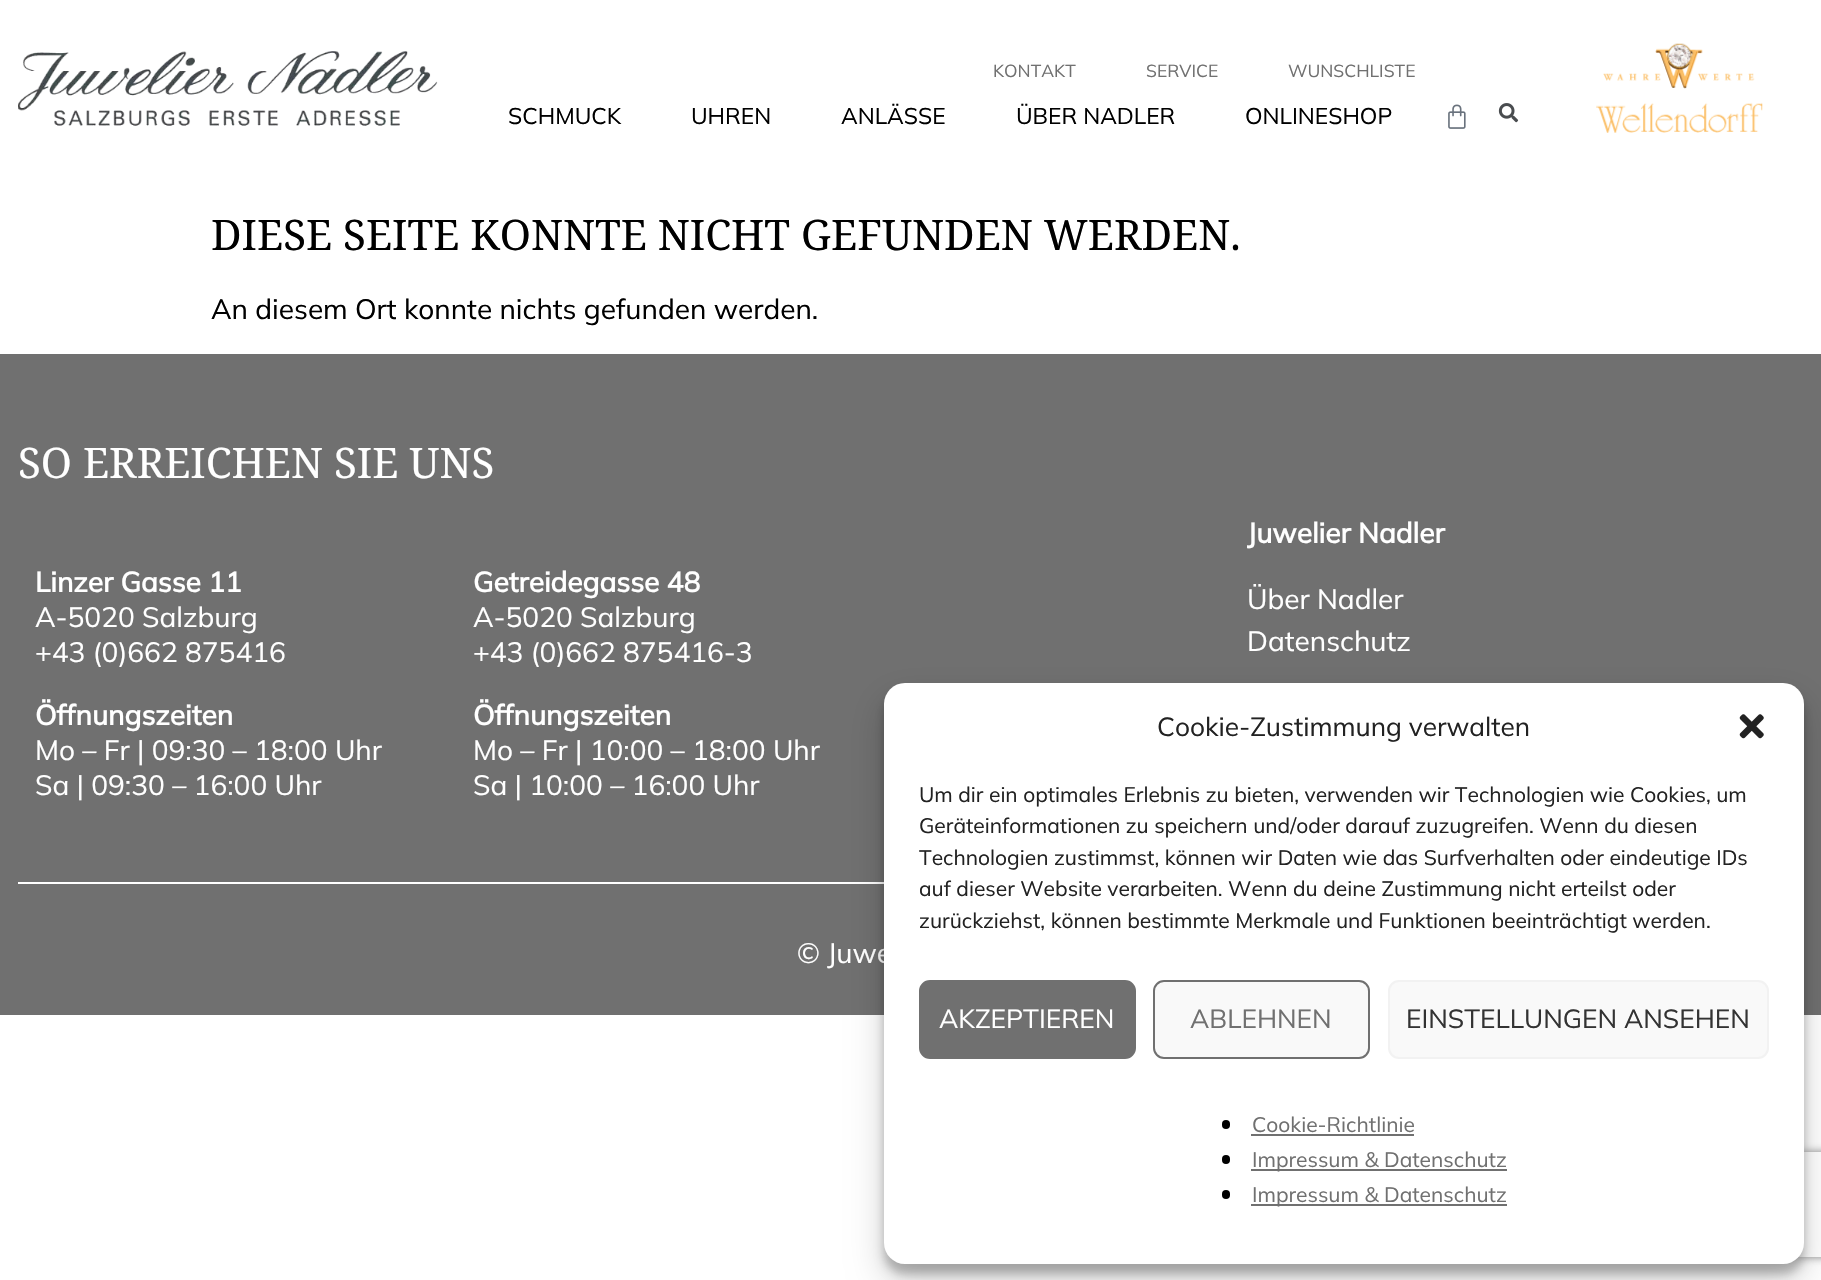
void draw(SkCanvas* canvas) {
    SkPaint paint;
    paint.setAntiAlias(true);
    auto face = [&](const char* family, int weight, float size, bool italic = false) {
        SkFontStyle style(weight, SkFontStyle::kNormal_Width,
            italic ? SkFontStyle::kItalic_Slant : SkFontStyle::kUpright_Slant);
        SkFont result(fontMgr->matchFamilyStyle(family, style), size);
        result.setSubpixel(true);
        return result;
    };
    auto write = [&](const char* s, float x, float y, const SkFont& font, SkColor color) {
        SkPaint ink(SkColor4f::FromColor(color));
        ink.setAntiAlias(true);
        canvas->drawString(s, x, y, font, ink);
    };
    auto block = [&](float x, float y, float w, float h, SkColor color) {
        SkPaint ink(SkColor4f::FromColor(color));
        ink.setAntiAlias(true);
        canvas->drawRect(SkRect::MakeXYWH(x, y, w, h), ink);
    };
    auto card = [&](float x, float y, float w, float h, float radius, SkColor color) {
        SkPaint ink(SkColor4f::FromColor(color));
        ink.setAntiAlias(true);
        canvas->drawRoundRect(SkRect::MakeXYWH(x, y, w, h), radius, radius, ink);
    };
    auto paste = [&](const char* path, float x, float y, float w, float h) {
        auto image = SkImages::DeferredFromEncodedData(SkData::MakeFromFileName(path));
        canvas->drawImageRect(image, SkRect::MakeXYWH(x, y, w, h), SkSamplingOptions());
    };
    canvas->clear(SK_ColorWHITE);
    paste("pic1.png", 18, 51, 420, 75);
    auto kFont1 = face("Mulish", 400, 17.5f);
    write("KONTAKT", 993, 77, kFont1, SkColorSetRGB(112, 112, 112));
    write("SERVICE", 1146, 77, kFont1, SkColorSetRGB(112, 112, 112));
    write("WUNSCHLISTE", 1288, 77, kFont1, SkColorSetRGB(112, 112, 112));
    auto kFont2 = face("Mulish", 400, 22.75f);
    write("SCHMUCK", 508, 124, kFont2, SK_ColorBLACK);
    write("UHREN", 691, 124, kFont2, SK_ColorBLACK);
    write("ANLÄSSE", 841, 124, kFont2, SK_ColorBLACK);
    write("ÜBER NADLER", 1016, 124, kFont2, SK_ColorBLACK);
    write("ONLINESHOP", 1245, 124, kFont2, SK_ColorBLACK);
    paste("pic2.png", 1448, 104, 18, 25);
    paste("pic3.png", 1498, 103, 21, 20);
    paste("pic4.png", 1596, 43, 167, 90);
    auto kFont3 = face("Noto Serif", 400, 42);
    write("DIESE SEITE KONNTE NICHT GEFUNDEN WERDEN.", 211, 250, kFont3, SK_ColorBLACK);
    auto kFont4 = face("Mulish", 400, 28);
    write("An diesem Ort konnte nichts gefunden werden.", 211, 319, kFont4, SK_ColorBLACK);
    block(0, 354, 1821, 661, SkColorSetRGB(112, 112, 112));
    write("SO ERREICHEN SIE UNS", 18, 478, kFont3, SK_ColorWHITE);
    auto kFont5 = face("Mulish", 700, 28);
    write("Linzer Gasse 11", 35, 592, kFont5, SK_ColorWHITE);
    write("A-5020 Salzburg", 35, 627, kFont4, SK_ColorWHITE);
    write("+43 (0)662 875416", 35, 662, kFont4, SK_ColorWHITE);
    write("Öffnungszeiten", 35, 725, kFont5, SK_ColorWHITE);
    write("Mo – Fr | 09:30 – 18:00 Uhr", 35, 760, kFont4, SK_ColorWHITE);
    write("Sa | 09:30 – 16:00 Uhr", 35, 795, kFont4, SK_ColorWHITE);
    write("Getreidegasse 48", 473, 592, kFont5, SK_ColorWHITE);
    write("A-5020 Salzburg", 473, 627, kFont4, SK_ColorWHITE);
    write("+43 (0)662 875416-3", 473, 662, kFont4, SK_ColorWHITE);
    write("Öffnungszeiten", 473, 725, kFont5, SK_ColorWHITE);
    write("Mo – Fr | 10:00 – 18:00 Uhr", 473, 760, kFont4, SK_ColorWHITE);
    write("Sa | 10:00 – 16:00 Uhr", 473, 795, kFont4, SK_ColorWHITE);
    write("Juwelier Nadler", 1247, 543, kFont5, SK_ColorWHITE);
    write("Über Nadler", 1247, 609, kFont4, SK_ColorWHITE);
    write("Datenschutz", 1247, 651, kFont4, SK_ColorWHITE);
    block(18, 882, 866, 2, SK_ColorWHITE);
    write("© Juwe", 797, 963, kFont4, SK_ColorWHITE);
    paint.setColor(SkColorSetARGB(59, 0, 0, 0));
    paint.setMaskFilter(SkMaskFilter::MakeBlur(kNormal_SkBlurStyle, 5));
    canvas->drawRoundRect(SkRect::MakeXYWH(884, 693, 920, 581), 21, 21, paint);
    paint.setMaskFilter(nullptr);
    paint.setColor(SkColorSetARGB(48, 0, 0, 0));
    paint.setMaskFilter(SkMaskFilter::MakeBlur(kNormal_SkBlurStyle, 17.5f));
    canvas->drawRoundRect(SkRect::MakeXYWH(884, 700, 920, 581), 21, 21, paint);
    paint.setMaskFilter(nullptr);
    canvas->save();
    canvas->clipPath(SkPathBuilder(SkPathFillType::kEvenOdd).moveTo(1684, 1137).lineTo(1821, 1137).lineTo(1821, 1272).lineTo(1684, 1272).close().moveTo(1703, 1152).lineTo(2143, 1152).cubicTo(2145, 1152, 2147, 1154, 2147, 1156).lineTo(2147, 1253).cubicTo(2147, 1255, 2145, 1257, 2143, 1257).lineTo(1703, 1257).cubicTo(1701, 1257, 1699, 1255, 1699, 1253).lineTo(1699, 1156).cubicTo(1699, 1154, 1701, 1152, 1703, 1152).close().detach(), true);
    paint.setColor(SkColorSetRGB(128, 128, 128));
    paint.setMaskFilter(SkMaskFilter::MakeBlur(kNormal_SkBlurStyle, 4.5f));
    canvas->drawRoundRect(SkRect::MakeXYWH(1699, 1152, 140, 105), 4, 4, paint);
    paint.setMaskFilter(nullptr);
    canvas->restore();
    card(884, 683, 920, 581, 21, SK_ColorWHITE);
    auto kFont6 = face("Mulish", 400, 26.25f);
    write("Cookie-Zustimmung verwalten", 1157, 736, kFont6, SkColorSetRGB(34, 34, 34));
    paste("pic5.png", 1739, 714, 25, 25);
    auto kFont7 = face("Mulish", 400, 21);
    write("Um dir ein optimales Erlebnis zu bieten, verwenden wir Technologien wie Cookies, um", 919, 802, kFont7, SkColorSetRGB(34, 34, 34));
    write("Geräteinformationen zu speichern und/oder darauf zuzugreifen. Wenn du diesen", 919, 833, kFont7, SkColorSetRGB(34, 34, 34));
    write("Technologien zustimmst, können wir Daten wie das Surfverhalten oder eindeutige IDs", 919, 865, kFont7, SkColorSetRGB(34, 34, 34));
    write("auf dieser Website verarbeiten. Wenn du deine Zustimmung nicht erteilst oder", 919, 896, kFont7, SkColorSetRGB(34, 34, 34));
    write("zurückziehst, können bestimmte Merkmale und Funktionen beeinträchtigt werden.", 919, 928, kFont7, SkColorSetRGB(34, 34, 34));
    paint.setColor(SkColorSetRGB(112, 112, 112));
    canvas->drawRoundRect(SkRect::MakeXYWH(920, 981, 215, 77), 10, 10, paint);
    paint.setStyle(SkPaint::kStroke_Style);
    paint.setStrokeWidth(2);
    canvas->drawRoundRect(SkRect::MakeXYWH(920, 981, 215, 77), 10, 10, paint);
    write("AKZEPTIEREN", 939, 1028, kFont6, SK_ColorWHITE);
    paint.setStyle(SkPaint::kFill_Style);
    paint.setColor(SkColorSetRGB(249, 249, 249));
    canvas->drawRoundRect(SkRect::MakeXYWH(1154, 981, 215, 77), 10, 10, paint);
    paint.setStyle(SkPaint::kStroke_Style);
    paint.setColor(SkColorSetRGB(112, 112, 112));
    canvas->drawRoundRect(SkRect::MakeXYWH(1154, 981, 215, 77), 10, 10, paint);
    write("ABLEHNEN", 1190, 1028, kFont6, SkColorSetRGB(112, 112, 112));
    paint.setStyle(SkPaint::kFill_Style);
    paint.setColor(SkColorSetRGB(249, 249, 249));
    canvas->drawRoundRect(SkRect::MakeXYWH(1389, 981, 379, 77), 10, 10, paint);
    paint.setStyle(SkPaint::kStroke_Style);
    paint.setColor(SkColorSetRGB(242, 242, 242));
    canvas->drawRoundRect(SkRect::MakeXYWH(1389, 981, 379, 77), 10, 10, paint);
    write("EINSTELLUNGEN ANSEHEN", 1406, 1028, kFont6, SkColorSetRGB(51, 51, 51));
    card(1222, 1120, 8, 9, 4, SK_ColorBLACK);
    write("Cookie-Richtlinie", 1252, 1132, kFont7, SkColorSetRGB(112, 112, 112));
    block(1251, 1134, 163, 2, SkColorSetRGB(112, 112, 112));
    card(1222, 1155, 8, 9, 4, SK_ColorBLACK);
    block(1251, 1169, 256, 2, SkColorSetRGB(112, 112, 112));
    write("Impressum & Datenschutz", 1252, 1167, kFont7, SkColorSetRGB(112, 112, 112));
    card(1222, 1190, 8, 9, 4, SK_ColorBLACK);
    block(1251, 1204, 256, 2, SkColorSetRGB(112, 112, 112));
    write("Impressum & Datenschutz", 1252, 1202, kFont7, SkColorSetRGB(112, 112, 112));
}
